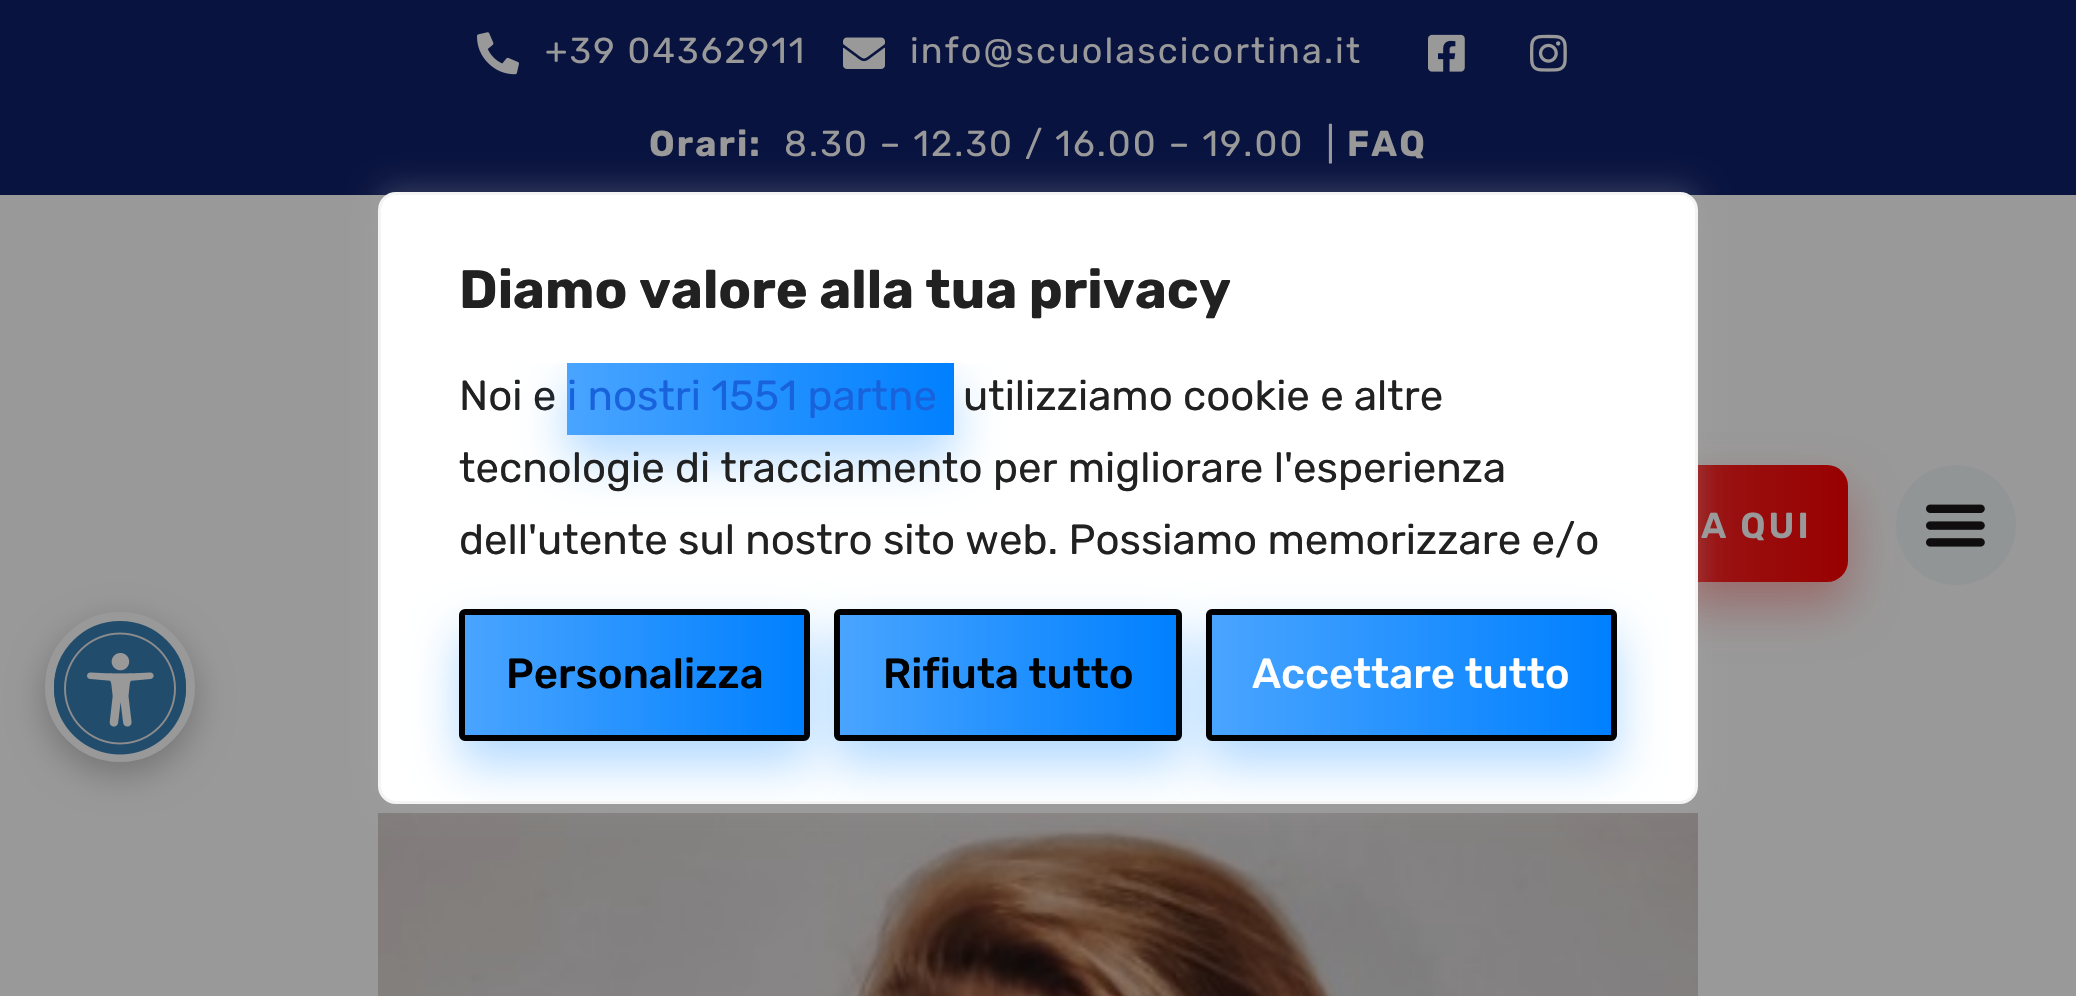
void draw(SkCanvas* canvas) {
    SkPaint paint;
    paint.setAntiAlias(true);
    auto face = [&](const char* family, int weight, float size, bool italic = false) {
        SkFontStyle style(weight, SkFontStyle::kNormal_Width,
            italic ? SkFontStyle::kItalic_Slant : SkFontStyle::kUpright_Slant);
        SkFont result(fontMgr->matchFamilyStyle(family, style), size);
        result.setSubpixel(true);
        return result;
    };
    auto write = [&](const char* s, float x, float y, const SkFont& font, SkColor color) {
        SkPaint ink(SkColor4f::FromColor(color));
        ink.setAntiAlias(true);
        canvas->drawString(s, x, y, font, ink);
    };
    auto writeSpaced = [&](const char* s, float x, float y, const SkFont& font, const SkPaint& ink, float letter, float word) {
        std::vector<SkGlyphID> glyphs(font.countText(s, strlen(s), SkTextEncoding::kUTF8));
        std::vector<float> xs(glyphs.size());
        font.textToGlyphs(s, strlen(s), SkTextEncoding::kUTF8, glyphs);
        font.getXPos(glyphs, xs, x);
        float extra = 0;
        for (size_t i = 0; i < glyphs.size(); i++) {
            xs[i] += extra;
            extra += letter + word * (glyphs[i] == font.unicharToGlyph(' '));
        }
        canvas->drawTextBlob(SkTextBlob::MakeFromPosHGlyphs(glyphs, xs, y, font), 0, 0, ink);
    };
    auto block = [&](float x, float y, float w, float h, SkColor color) {
        SkPaint ink(SkColor4f::FromColor(color));
        ink.setAntiAlias(true);
        canvas->drawRect(SkRect::MakeXYWH(x, y, w, h), ink);
    };
    auto paste = [&](const char* path, float x, float y, float w, float h) {
        auto image = SkImages::DeferredFromEncodedData(SkData::MakeFromFileName(path));
        canvas->drawImageRect(image, SkRect::MakeXYWH(x, y, w, h), SkSamplingOptions());
    };
    canvas->clear(SkColorSetRGB(153, 153, 153));
    block(0, 0, 2076, 195, SkColorSetRGB(9, 19, 63));
    paste("pic1.png", 477, 32, 42, 43);
    auto kFont1 = face("Rubik", 400, 36);
    paint.setColor(SkColorSetRGB(153, 153, 153));
    writeSpaced("+39 04362911", 545, 63, kFont1, paint, 2.1f, 0);
    paste("pic2.png", 843, 37, 42, 32);
    writeSpaced("info@scuolascicortina.it", 910, 63, kFont1, paint, 2.1f, 0);
    paste("pic3.png", 1428, 34, 37, 38);
    paste("pic4.png", 1530, 34, 37, 38);
    auto kFont2 = face("Rubik", 700, 36);
    writeSpaced("Orari:", 649, 156, kFont2, paint, 2.1f, 0);
    writeSpaced("8.30 – 12.30 / 16.00 – 19.00  |", 784, 156, kFont1, paint, 2.1f, 0);
    writeSpaced("FAQ", 1347, 156, kFont2, paint, 2.1f, 0);
    paint.setColor(SkColorSetARGB(77, 153, 0, 0));
    paint.setMaskFilter(SkMaskFilter::MakeBlur(kNormal_SkBlurStyle, 24));
    canvas->drawRoundRect(SkRect::MakeXYWH(1503, 489, 345, 117), 21, 21, paint);
    paint.setMaskFilter(nullptr);
    {
        const SkColor colors[] = {SkColorSetRGB(46, 100, 153), SkColorSetRGB(0, 77, 153), SkColorSetRGB(153, 48, 48), SkColorSetRGB(153, 0, 0)};
        const float stops[] = {0, 0.5f, 0.5f, 1};
        const SkPoint ends[] = {{1124, 524}, {1848, 524}};
        paint.setShader(SkGradientShader::MakeLinear(ends, colors, stops, 4, SkTileMode::kClamp));
        paint.setAlpha(255);
    }
    canvas->drawRoundRect(SkRect::MakeXYWH(1503, 465, 345, 117), 21, 21, paint);
    auto kFont3 = face("Rubik", 600, 36);
    paint.setShader(nullptr);
    paint.setColor(SkColorSetRGB(153, 153, 153));
    writeSpaced("A QUI", 1701, 538, kFont3, paint, 3, 0);
    paint.setColor(SkColorSetRGB(145, 149, 149));
    canvas->drawCircle(1956, 525, 60, paint);
    paste("pic5.png", 1926, 504, 59, 43);
    paste("pic6.png", 378, 813, 1320, 183);
    paint.setColor(SkColorSetARGB(64, 0, 0, 0));
    paint.setMaskFilter(SkMaskFilter::MakeBlur(kNormal_SkBlurStyle, 18));
    canvas->drawRoundRect(SkRect::MakeXYWH(45, 624, 150, 150), 75, 75, paint);
    paint.setMaskFilter(nullptr);
    paint.setColor(SkColorSetRGB(34, 76, 108));
    canvas->drawCircle(120, 687, 70.5f, paint);
    paint.setStyle(SkPaint::kStroke_Style);
    paint.setStrokeWidth(9);
    paint.setColor(SkColorSetRGB(153, 153, 153));
    canvas->drawCircle(120, 687, 70.5f, paint);
    paste("pic7.png", 54, 632, 132, 123);
    paint.setStyle(SkPaint::kFill_Style);
    paint.setColor(SkColorSetARGB(77, 172, 171, 171));
    paint.setMaskFilter(SkMaskFilter::MakeBlur(kNormal_SkBlurStyle, 15));
    canvas->drawRoundRect(SkRect::MakeXYWH(378, 189, 1320, 612), 18, 18, paint);
    paint.setMaskFilter(nullptr);
    paint.setColor(SK_ColorWHITE);
    canvas->drawRoundRect(SkRect::MakeXYWH(379.5f, 193.5f, 1317, 609), 16.5f, 16.5f, paint);
    paint.setStyle(SkPaint::kStroke_Style);
    paint.setStrokeWidth(3);
    paint.setColor(SkColorSetRGB(244, 244, 244));
    canvas->drawRoundRect(SkRect::MakeXYWH(379.5f, 193.5f, 1317, 609), 16.5f, 16.5f, paint);
    auto kFont4 = face("Rubik", 700, 54);
    write("Diamo valore alla tua privacy", 459, 308, kFont4, SkColorSetRGB(33, 33, 33));
    auto kFont5 = face("Rubik", 400, 42);
    write("Noi e", 459, 410, kFont5, SkColorSetRGB(33, 33, 33));
    canvas->save();
    canvas->clipRect(SkRect::MakeXYWH(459, 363, 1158, 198));
    paint.setStyle(SkPaint::kFill_Style);
    paint.setColor(SkColorSetARGB(77, 0, 128, 255));
    paint.setMaskFilter(SkMaskFilter::MakeBlur(kNormal_SkBlurStyle, 24));
    canvas->drawRect(SkRect::MakeXYWH(567, 387, 387, 72), paint);
    paint.setMaskFilter(nullptr);
    canvas->restore();
    {
        const SkColor colors[] = {SkColorSetRGB(255, 80, 80), SkColorSetRGB(255, 0, 0), SkColorSetRGB(77, 166, 255), SkColorSetRGB(0, 128, 255)};
        const float stops[] = {0, 0.5f, 0.5f, 1};
        const SkPoint ends[] = {{141, 398}, {954, 398}};
        paint.setShader(SkGradientShader::MakeLinear(ends, colors, stops, 4, SkTileMode::kClamp));
        paint.setAlpha(255);
    }
    canvas->drawRect(SkRect::MakeXYWH(567, 363, 387, 72), paint);
    write("i nostri 1551 partne", 567, 410, kFont5, SkColorSetRGB(24, 99, 220));
    write("utilizziamo cookie e altre", 963, 410, kFont5, SkColorSetRGB(33, 33, 33));
    write("tecnologie di tracciamento per migliorare l'esperienza", 459, 482, kFont5, SkColorSetRGB(33, 33, 33));
    write("dell'utente sul nostro sito web. Possiamo memorizzare e/o", 459, 554, kFont5, SkColorSetRGB(33, 33, 33));
    canvas->save();
    canvas->clipPath(SkPathBuilder().moveTo(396, 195).lineTo(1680, 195).cubicTo(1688.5f, 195, 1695, 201.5f, 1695, 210).lineTo(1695, 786).cubicTo(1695, 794.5f, 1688.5f, 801, 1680, 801).lineTo(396, 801).cubicTo(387.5f, 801, 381, 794.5f, 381, 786).lineTo(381, 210).cubicTo(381, 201.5f, 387.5f, 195, 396, 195).close().detach(), true);
    paint.setShader(nullptr);
    paint.setColor(SkColorSetARGB(77, 0, 128, 255));
    paint.setMaskFilter(SkMaskFilter::MakeBlur(kNormal_SkBlurStyle, 24));
    canvas->drawRoundRect(SkRect::MakeXYWH(459, 633, 351, 132), 6, 6, paint);
    paint.setMaskFilter(nullptr);
    canvas->restore();
    {
        const SkColor colors[] = {SkColorSetRGB(255, 80, 80), SkColorSetRGB(255, 0, 0), SkColorSetRGB(77, 166, 255), SkColorSetRGB(0, 128, 255)};
        const float stops[] = {0, 0.5f, 0.5f, 1};
        const SkPoint ends[] = {{92, 674}, {804, 674}};
        paint.setShader(SkGradientShader::MakeLinear(ends, colors, stops, 4, SkTileMode::kClamp));
        paint.setAlpha(255);
    }
    canvas->drawRect(SkRect::MakeXYWH(465, 615, 339, 120), paint);
    paint.setStyle(SkPaint::kStroke_Style);
    paint.setStrokeWidth(6);
    paint.setShader(nullptr);
    paint.setColor(SK_ColorBLACK);
    canvas->drawRoundRect(SkRect::MakeXYWH(462, 612, 345, 126), 3, 3, paint);
    auto kFont6 = face("Rubik", 500, 42);
    write("Personalizza", 506, 688, kFont6, SK_ColorBLACK);
    canvas->save();
    canvas->clipPath(SkPathBuilder().moveTo(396, 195).lineTo(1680, 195).cubicTo(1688.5f, 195, 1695, 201.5f, 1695, 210).lineTo(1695, 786).cubicTo(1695, 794.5f, 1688.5f, 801, 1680, 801).lineTo(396, 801).cubicTo(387.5f, 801, 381, 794.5f, 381, 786).lineTo(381, 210).cubicTo(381, 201.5f, 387.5f, 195, 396, 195).close().detach(), true);
    paint.setStyle(SkPaint::kFill_Style);
    paint.setColor(SkColorSetARGB(77, 0, 128, 255));
    paint.setMaskFilter(SkMaskFilter::MakeBlur(kNormal_SkBlurStyle, 24));
    canvas->drawRoundRect(SkRect::MakeXYWH(834, 633, 348, 132), 6, 6, paint);
    paint.setMaskFilter(nullptr);
    canvas->restore();
    {
        const SkColor colors[] = {SkColorSetRGB(255, 80, 80), SkColorSetRGB(255, 0, 0), SkColorSetRGB(77, 166, 255), SkColorSetRGB(0, 128, 255)};
        const float stops[] = {0, 0.5f, 0.5f, 1};
        const SkPoint ends[] = {{470, 674}, {1176, 674}};
        paint.setShader(SkGradientShader::MakeLinear(ends, colors, stops, 4, SkTileMode::kClamp));
        paint.setAlpha(255);
    }
    canvas->drawRect(SkRect::MakeXYWH(840, 615, 336, 120), paint);
    paint.setStyle(SkPaint::kStroke_Style);
    paint.setShader(nullptr);
    paint.setColor(SK_ColorBLACK);
    canvas->drawRoundRect(SkRect::MakeXYWH(837, 612, 342, 126), 3, 3, paint);
    write("Rifiuta tutto", 883, 688, kFont6, SK_ColorBLACK);
    canvas->save();
    canvas->clipPath(SkPathBuilder().moveTo(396, 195).lineTo(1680, 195).cubicTo(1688.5f, 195, 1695, 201.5f, 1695, 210).lineTo(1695, 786).cubicTo(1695, 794.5f, 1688.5f, 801, 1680, 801).lineTo(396, 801).cubicTo(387.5f, 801, 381, 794.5f, 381, 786).lineTo(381, 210).cubicTo(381, 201.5f, 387.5f, 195, 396, 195).close().detach(), true);
    paint.setStyle(SkPaint::kFill_Style);
    paint.setColor(SkColorSetARGB(77, 0, 128, 255));
    paint.setMaskFilter(SkMaskFilter::MakeBlur(kNormal_SkBlurStyle, 24));
    canvas->drawRoundRect(SkRect::MakeXYWH(1206, 633, 411, 132), 6, 6, paint);
    paint.setMaskFilter(nullptr);
    canvas->restore();
    {
        const SkColor colors[] = {SkColorSetRGB(255, 80, 80), SkColorSetRGB(255, 0, 0), SkColorSetRGB(77, 166, 255), SkColorSetRGB(0, 128, 255)};
        const float stops[] = {0, 0.5f, 0.5f, 1};
        const SkPoint ends[] = {{773, 674}, {1611, 674}};
        paint.setShader(SkGradientShader::MakeLinear(ends, colors, stops, 4, SkTileMode::kClamp));
        paint.setAlpha(255);
    }
    canvas->drawRect(SkRect::MakeXYWH(1212, 615, 399, 120), paint);
    paint.setStyle(SkPaint::kStroke_Style);
    paint.setShader(nullptr);
    paint.setColor(SK_ColorBLACK);
    canvas->drawRoundRect(SkRect::MakeXYWH(1209, 612, 405, 126), 3, 3, paint);
    write("Accettare tutto", 1252, 688, kFont6, SK_ColorWHITE);
}
